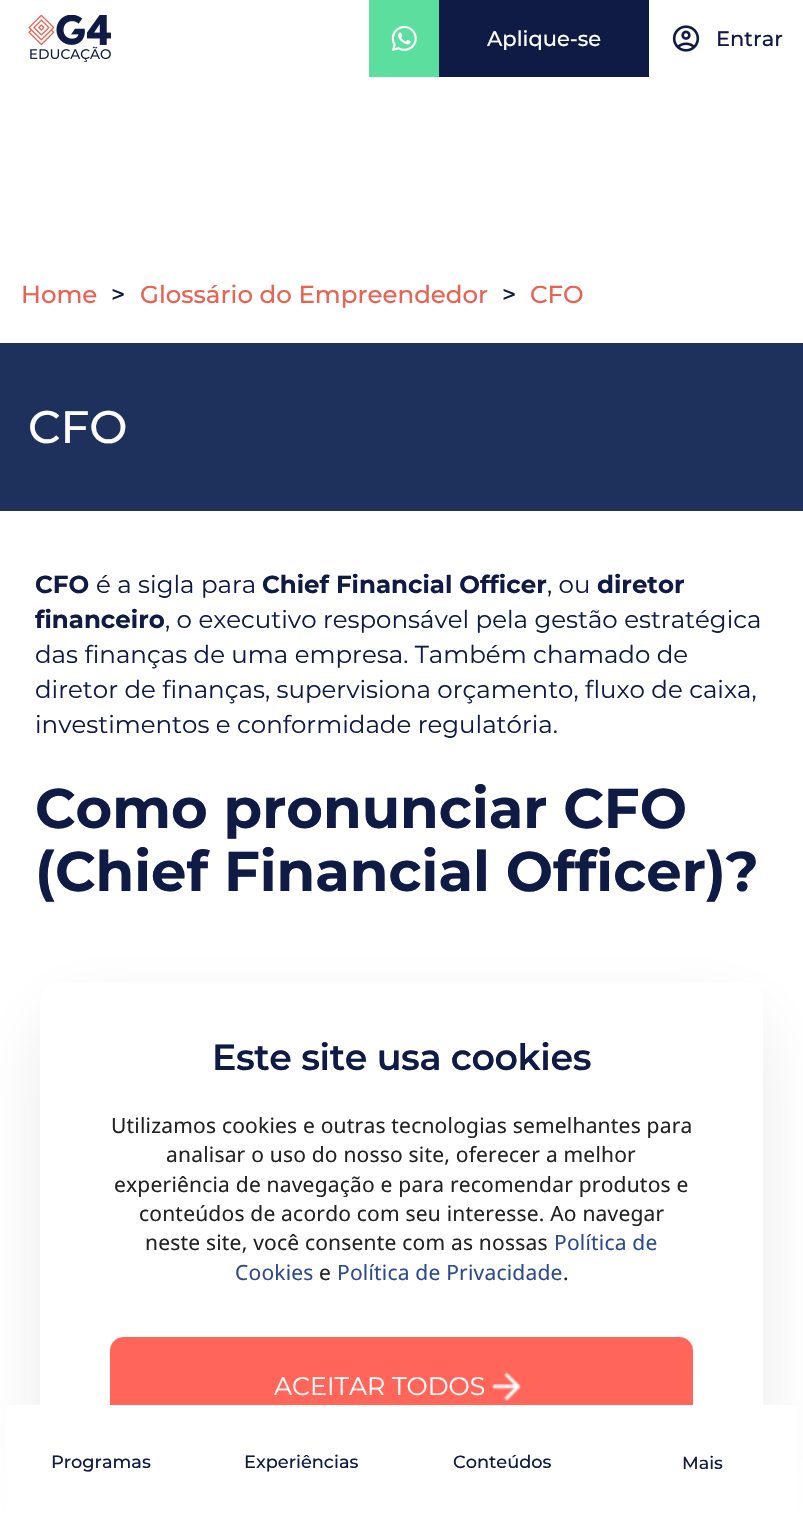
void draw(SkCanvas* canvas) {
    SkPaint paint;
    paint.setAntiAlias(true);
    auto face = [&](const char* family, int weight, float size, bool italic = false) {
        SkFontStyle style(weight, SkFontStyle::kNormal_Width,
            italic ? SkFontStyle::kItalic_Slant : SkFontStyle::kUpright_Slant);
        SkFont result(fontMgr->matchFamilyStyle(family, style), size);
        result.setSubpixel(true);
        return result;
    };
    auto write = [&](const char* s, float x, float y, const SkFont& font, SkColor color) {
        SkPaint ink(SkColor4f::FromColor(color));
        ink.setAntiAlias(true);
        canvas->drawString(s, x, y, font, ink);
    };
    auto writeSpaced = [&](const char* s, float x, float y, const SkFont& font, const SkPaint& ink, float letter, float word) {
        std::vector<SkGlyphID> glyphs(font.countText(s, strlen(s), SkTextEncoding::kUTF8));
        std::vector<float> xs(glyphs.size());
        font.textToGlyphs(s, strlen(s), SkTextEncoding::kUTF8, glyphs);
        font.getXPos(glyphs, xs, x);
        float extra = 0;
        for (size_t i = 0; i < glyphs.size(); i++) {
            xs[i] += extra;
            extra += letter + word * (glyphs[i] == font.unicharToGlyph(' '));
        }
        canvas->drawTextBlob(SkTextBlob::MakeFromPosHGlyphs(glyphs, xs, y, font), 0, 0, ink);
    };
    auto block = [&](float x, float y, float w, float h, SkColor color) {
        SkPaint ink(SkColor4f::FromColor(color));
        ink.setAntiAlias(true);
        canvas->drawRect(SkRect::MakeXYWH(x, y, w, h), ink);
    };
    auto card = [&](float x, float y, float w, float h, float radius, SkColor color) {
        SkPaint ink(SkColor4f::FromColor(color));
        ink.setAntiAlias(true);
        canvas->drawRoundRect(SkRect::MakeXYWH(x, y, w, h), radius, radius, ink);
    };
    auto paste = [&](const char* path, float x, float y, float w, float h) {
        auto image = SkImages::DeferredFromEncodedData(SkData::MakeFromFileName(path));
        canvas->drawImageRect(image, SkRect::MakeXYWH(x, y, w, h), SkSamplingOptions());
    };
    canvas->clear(SK_ColorWHITE);
    paste("pic1.png", 28, 15, 83, 47);
    block(369, 0, 70, 77, SkColorSetRGB(92, 222, 159));
    paste("pic2.png", 391, 25, 26, 26);
    block(439, 0, 210, 77, SkColorSetRGB(15, 26, 69));
    auto kFont1 = face("Montserrat", 500, 21);
    write("Aplique-se", 487, 46, kFont1, SK_ColorWHITE);
    paste("pic3.png", 672, 25, 28, 27);
    write("Entrar", 716, 46, kFont1, SkColorSetRGB(15, 26, 69));
    paint.setColor(SkColorSetARGB(38, 34, 34, 34));
    paint.setMaskFilter(SkMaskFilter::MakeBlur(kNormal_SkBlurStyle, 36));
    canvas->drawRect(SkRect::MakeXYWH(58, 1026, 688, 470), paint);
    paint.setMaskFilter(nullptr);
    card(40, 982, 723, 506, 18, SK_ColorWHITE);
    card(110, 1337, 583, 98, 14, SkColorSetRGB(255, 101, 89));
    block(7, 1405, 790, 122, SK_ColorWHITE);
    auto kFont2 = face("Montserrat", 500, 17.75f);
    write("Programas", 51, 1468, kFont2, SkColorSetRGB(15, 26, 69));
    write("Experiências", 244, 1468, kFont2, SkColorSetRGB(15, 26, 69));
    write("Conteúdos", 453, 1468, kFont2, SkColorSetRGB(15, 26, 69));
    auto kFont3 = face("Montserrat", 500, 17.5f);
    write("Mais", 682, 1469, kFont3, SkColorSetRGB(15, 26, 69));
    auto kFont4 = face("Montserrat", 500, 24.5f);
    write("Home", 21, 303, kFont4, SkColorSetRGB(231, 99, 83));
    write(">", 111, 303, kFont4, SkColorSetRGB(15, 26, 69));
    write("Glossário do Empreendedor", 140, 303, kFont4, SkColorSetRGB(231, 99, 83));
    write(">", 502, 303, kFont4, SkColorSetRGB(15, 26, 69));
    write("CFO", 530, 303, kFont4, SkColorSetRGB(231, 99, 83));
    block(0, 343, 803, 168, SkColorSetRGB(30, 49, 93));
    auto kFont5 = face("Montserrat", 500, 45.5f);
    write("CFO", 28, 443, kFont5, SK_ColorWHITE);
    auto kFont6 = face("Montserrat", 700, 24.5f);
    write("CFO", 35, 593, kFont6, SkColorSetRGB(15, 26, 69));
    auto kFont7 = face("Montserrat", 100, 24.5f);
    write("é a sigla para", 96, 593, kFont7, SkColorSetRGB(15, 26, 69));
    write("Chief Financial Officer", 262, 593, kFont6, SkColorSetRGB(15, 26, 69));
    write(", ou", 547, 593, kFont7, SkColorSetRGB(15, 26, 69));
    write("diretor", 597, 593, kFont6, SkColorSetRGB(15, 26, 69));
    write("financeiro", 35, 628, kFont6, SkColorSetRGB(15, 26, 69));
    write(", o executivo responsável pela gestão estratégica", 165, 628, kFont7, SkColorSetRGB(15, 26, 69));
    write("das finanças de uma empresa. Também chamado de", 35, 663, kFont7, SkColorSetRGB(15, 26, 69));
    write("diretor de finanças, supervisiona orçamento, fluxo de caixa,", 35, 698, kFont7, SkColorSetRGB(15, 26, 69));
    write("investimentos e conformidade regulatória.", 35, 733, kFont7, SkColorSetRGB(15, 26, 69));
    auto kFont8 = face("Montserrat", 700, 56);
    write("Como pronunciar CFO", 35, 828, kFont8, SkColorSetRGB(15, 26, 69));
    write("(Chief Financial Officer)?", 35, 891, kFont8, SkColorSetRGB(15, 26, 69));
    auto kFont9 = face("Montserrat", 600, 36.4f);
    paint.setColor(SkColorSetRGB(15, 26, 69));
    writeSpaced("Este site usa cookies", 212, 1070, kFont9, paint, -0.4f, 0);
    auto kFont10 = face("Noto Sans", 400, 21);
    paint.setColor(SkColorSetRGB(34, 34, 34));
    writeSpaced("Utilizamos cookies e outras tecnologias semelhantes para", 111, 1133, kFont10, paint, 0.2f, 0);
    writeSpaced("analisar o uso do nosso site, oferecer a melhor", 166, 1162, kFont10, paint, 0.2f, 0);
    writeSpaced("experiência de navegação e para recomendar produtos e", 114, 1192, kFont10, paint, 0.2f, 0);
    writeSpaced("conteúdos de acordo com seu interesse. Ao navegar", 139, 1221, kFont10, paint, 0.2f, 0);
    writeSpaced("neste site, você consente com as nossas", 145, 1250, kFont10, paint, 0.2f, 0);
    paint.setColor(SkColorSetRGB(45, 74, 140));
    writeSpaced("Política de", 554, 1250, kFont10, paint, 0.2f, 0);
    writeSpaced("Cookies", 235, 1280, kFont10, paint, 0.2f, 0);
    paint.setColor(SkColorSetRGB(34, 34, 34));
    writeSpaced("e", 319, 1280, kFont10, paint, 0.2f, 0);
    paint.setColor(SkColorSetRGB(45, 74, 140));
    writeSpaced("Política de Privacidade", 337, 1280, kFont10, paint, 0.2f, 0);
    paint.setColor(SkColorSetRGB(34, 34, 34));
    writeSpaced(".", 563, 1280, kFont10, paint, 0.2f, 0);
    auto kFont11 = face("Montserrat", 100, 25.25f);
    write("ACEITAR TODOS", 274, 1395, kFont11, SK_ColorWHITE);
    paste("pic4.png", 491, 1371, 30, 30);
}
